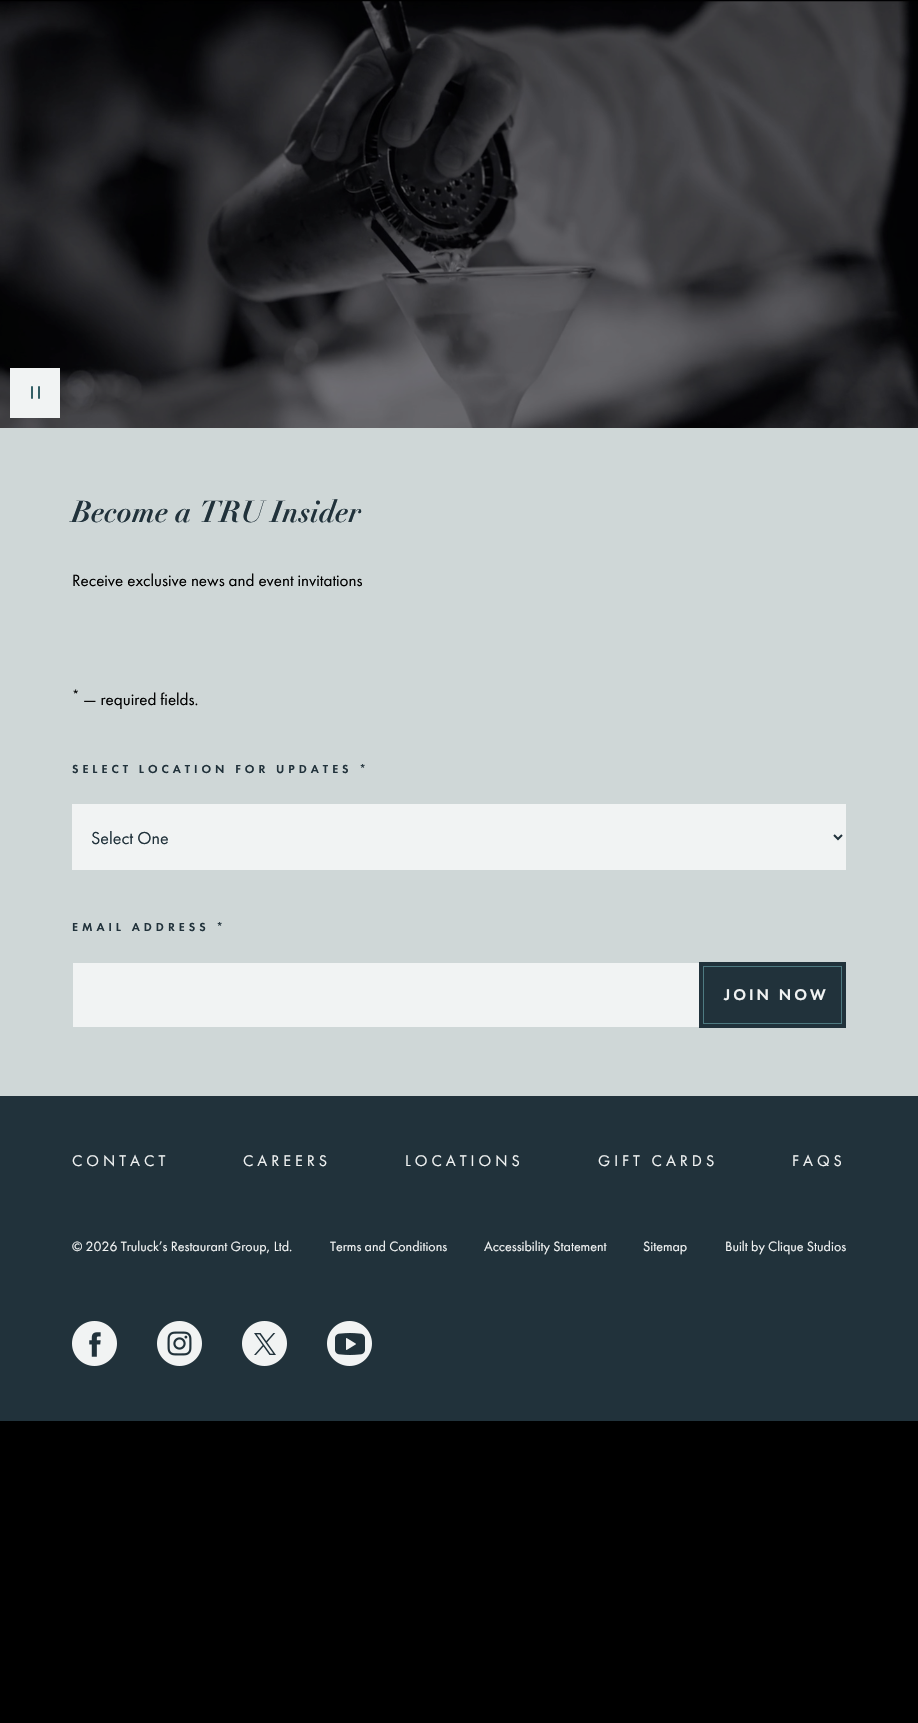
void draw(SkCanvas* canvas) {
    SkPaint paint;
    paint.setAntiAlias(true);
    auto face = [&](const char* family, int weight, float size, bool italic = false) {
        SkFontStyle style(weight, SkFontStyle::kNormal_Width,
            italic ? SkFontStyle::kItalic_Slant : SkFontStyle::kUpright_Slant);
        SkFont result(fontMgr->matchFamilyStyle(family, style), size);
        result.setSubpixel(true);
        return result;
    };
    auto write = [&](const char* s, float x, float y, const SkFont& font, SkColor color) {
        SkPaint ink(SkColor4f::FromColor(color));
        ink.setAntiAlias(true);
        canvas->drawString(s, x, y, font, ink);
    };
    auto writeSpaced = [&](const char* s, float x, float y, const SkFont& font, const SkPaint& ink, float letter, float word) {
        std::vector<SkGlyphID> glyphs(font.countText(s, strlen(s), SkTextEncoding::kUTF8));
        std::vector<float> xs(glyphs.size());
        font.textToGlyphs(s, strlen(s), SkTextEncoding::kUTF8, glyphs);
        font.getXPos(glyphs, xs, x);
        float extra = 0;
        for (size_t i = 0; i < glyphs.size(); i++) {
            xs[i] += extra;
            extra += letter + word * (glyphs[i] == font.unicharToGlyph(' '));
        }
        canvas->drawTextBlob(SkTextBlob::MakeFromPosHGlyphs(glyphs, xs, y, font), 0, 0, ink);
    };
    auto block = [&](float x, float y, float w, float h, SkColor color) {
        SkPaint ink(SkColor4f::FromColor(color));
        ink.setAntiAlias(true);
        canvas->drawRect(SkRect::MakeXYWH(x, y, w, h), ink);
    };
    auto card = [&](float x, float y, float w, float h, float radius, SkColor color) {
        SkPaint ink(SkColor4f::FromColor(color));
        ink.setAntiAlias(true);
        canvas->drawRoundRect(SkRect::MakeXYWH(x, y, w, h), radius, radius, ink);
    };
    auto paste = [&](const char* path, float x, float y, float w, float h) {
        auto image = SkImages::DeferredFromEncodedData(SkData::MakeFromFileName(path));
        canvas->drawImageRect(image, SkRect::MakeXYWH(x, y, w, h), SkSamplingOptions());
    };
    canvas->clear(SK_ColorBLACK);
    paste("pic1.png", 0, 0, 918, 428);
    block(10, 368, 50, 50, SkColorSetRGB(241, 243, 243));
    card(31, 386, 2, 13, 1, SkColorSetRGB(51, 95, 102));
    card(38, 386, 2, 13, 1, SkColorSetRGB(51, 95, 102));
    block(0, 428, 918, 668, SkColorSetRGB(207, 215, 215));
    auto kFont1 = face("Didot", 700, 30, true);
    write("Become a TRU Insider", 72, 522, kFont1, SkColorSetRGB(33, 50, 59));
    auto kFont2 = face("Futura PT", 400, 17);
    write("Receive exclusive news and event invitations", 72, 586, kFont2, SK_ColorBLACK);
    auto kFont3 = face("Futura PT", 400, 13);
    write("*", 72, 699, kFont3, SK_ColorBLACK);
    write("— required fields.", 83, 705, kFont2, SK_ColorBLACK);
    auto kFont4 = face("Futura PT", 500, 12);
    paint.setColor(SkColorSetRGB(33, 50, 59));
    writeSpaced("SELECT LOCATION FOR UPDATES *", 72, 773, kFont4, paint, 4, 0);
    block(72, 804, 774, 66, SkColorSetRGB(241, 243, 243));
    paint.setStyle(SkPaint::kStroke_Style);
    paint.setStrokeWidth(2);
    canvas->drawPath(SkPathBuilder().moveTo(834, 835).lineTo(838, 839).lineTo(842, 835).detach(), paint);
    auto kFont5 = face("Futura PT", 400, 18);
    write("Select One", 91, 844, kFont5, SkColorSetRGB(33, 50, 59));
    paint.setStyle(SkPaint::kFill_Style);
    writeSpaced("EMAIL ADDRESS *", 72, 931, kFont4, paint, 4, 0);
    block(73, 963, 626, 64, SkColorSetRGB(241, 243, 243));
    paint.setStyle(SkPaint::kStroke_Style);
    paint.setStrokeWidth(4);
    canvas->drawRect(SkRect::MakeXYWH(701, 964, 143, 62), paint);
    paint.setStyle(SkPaint::kFill_Style);
    canvas->drawRect(SkRect::MakeXYWH(703.5f, 966.5f, 138, 57), paint);
    paint.setStyle(SkPaint::kStroke_Style);
    paint.setStrokeWidth(1);
    paint.setColor(SkColorSetRGB(78, 122, 129));
    canvas->drawRect(SkRect::MakeXYWH(703.5f, 966.5f, 138, 57), paint);
    auto kFont6 = face("Futura PT", 500, 16);
    paint.setStyle(SkPaint::kFill_Style);
    paint.setColor(SkColorSetRGB(241, 243, 243));
    writeSpaced("JOIN NOW", 724, 1000, kFont6, paint, 3, 0);
    block(0, 1096, 918, 325, SkColorSetRGB(33, 50, 59));
    auto kFont7 = face("Futura PT", 400, 16);
    writeSpaced("CONTACT", 72, 1166, kFont7, paint, 4, 0);
    writeSpaced("CAREERS", 243, 1166, kFont7, paint, 4, 0);
    writeSpaced("LOCATIONS", 405, 1166, kFont7, paint, 4, 0);
    writeSpaced("GIFT CARDS", 598, 1166, kFont7, paint, 4, 0);
    writeSpaced("FAQS", 792, 1166, kFont7, paint, 4, 0);
    auto kFont8 = face("Futura PT", 400, 14);
    write("© 2026 Truluck’s Restaurant Group, Ltd.", 72, 1251, kFont8, SkColorSetRGB(241, 243, 243));
    write("Terms and Conditions", 330, 1251, kFont8, SkColorSetRGB(241, 243, 243));
    write("Accessibility Statement", 484, 1251, kFont8, SkColorSetRGB(241, 243, 243));
    write("Sitemap", 643, 1251, kFont8, SkColorSetRGB(241, 243, 243));
    write("Built by Clique Studios", 725, 1251, kFont8, SkColorSetRGB(241, 243, 243));
    paste("pic2.png", 72, 1321, 45, 45);
    paste("pic3.png", 157, 1321, 45, 45);
    paste("pic4.png", 242, 1321, 45, 45);
    paste("pic5.png", 327, 1321, 45, 45);
}
